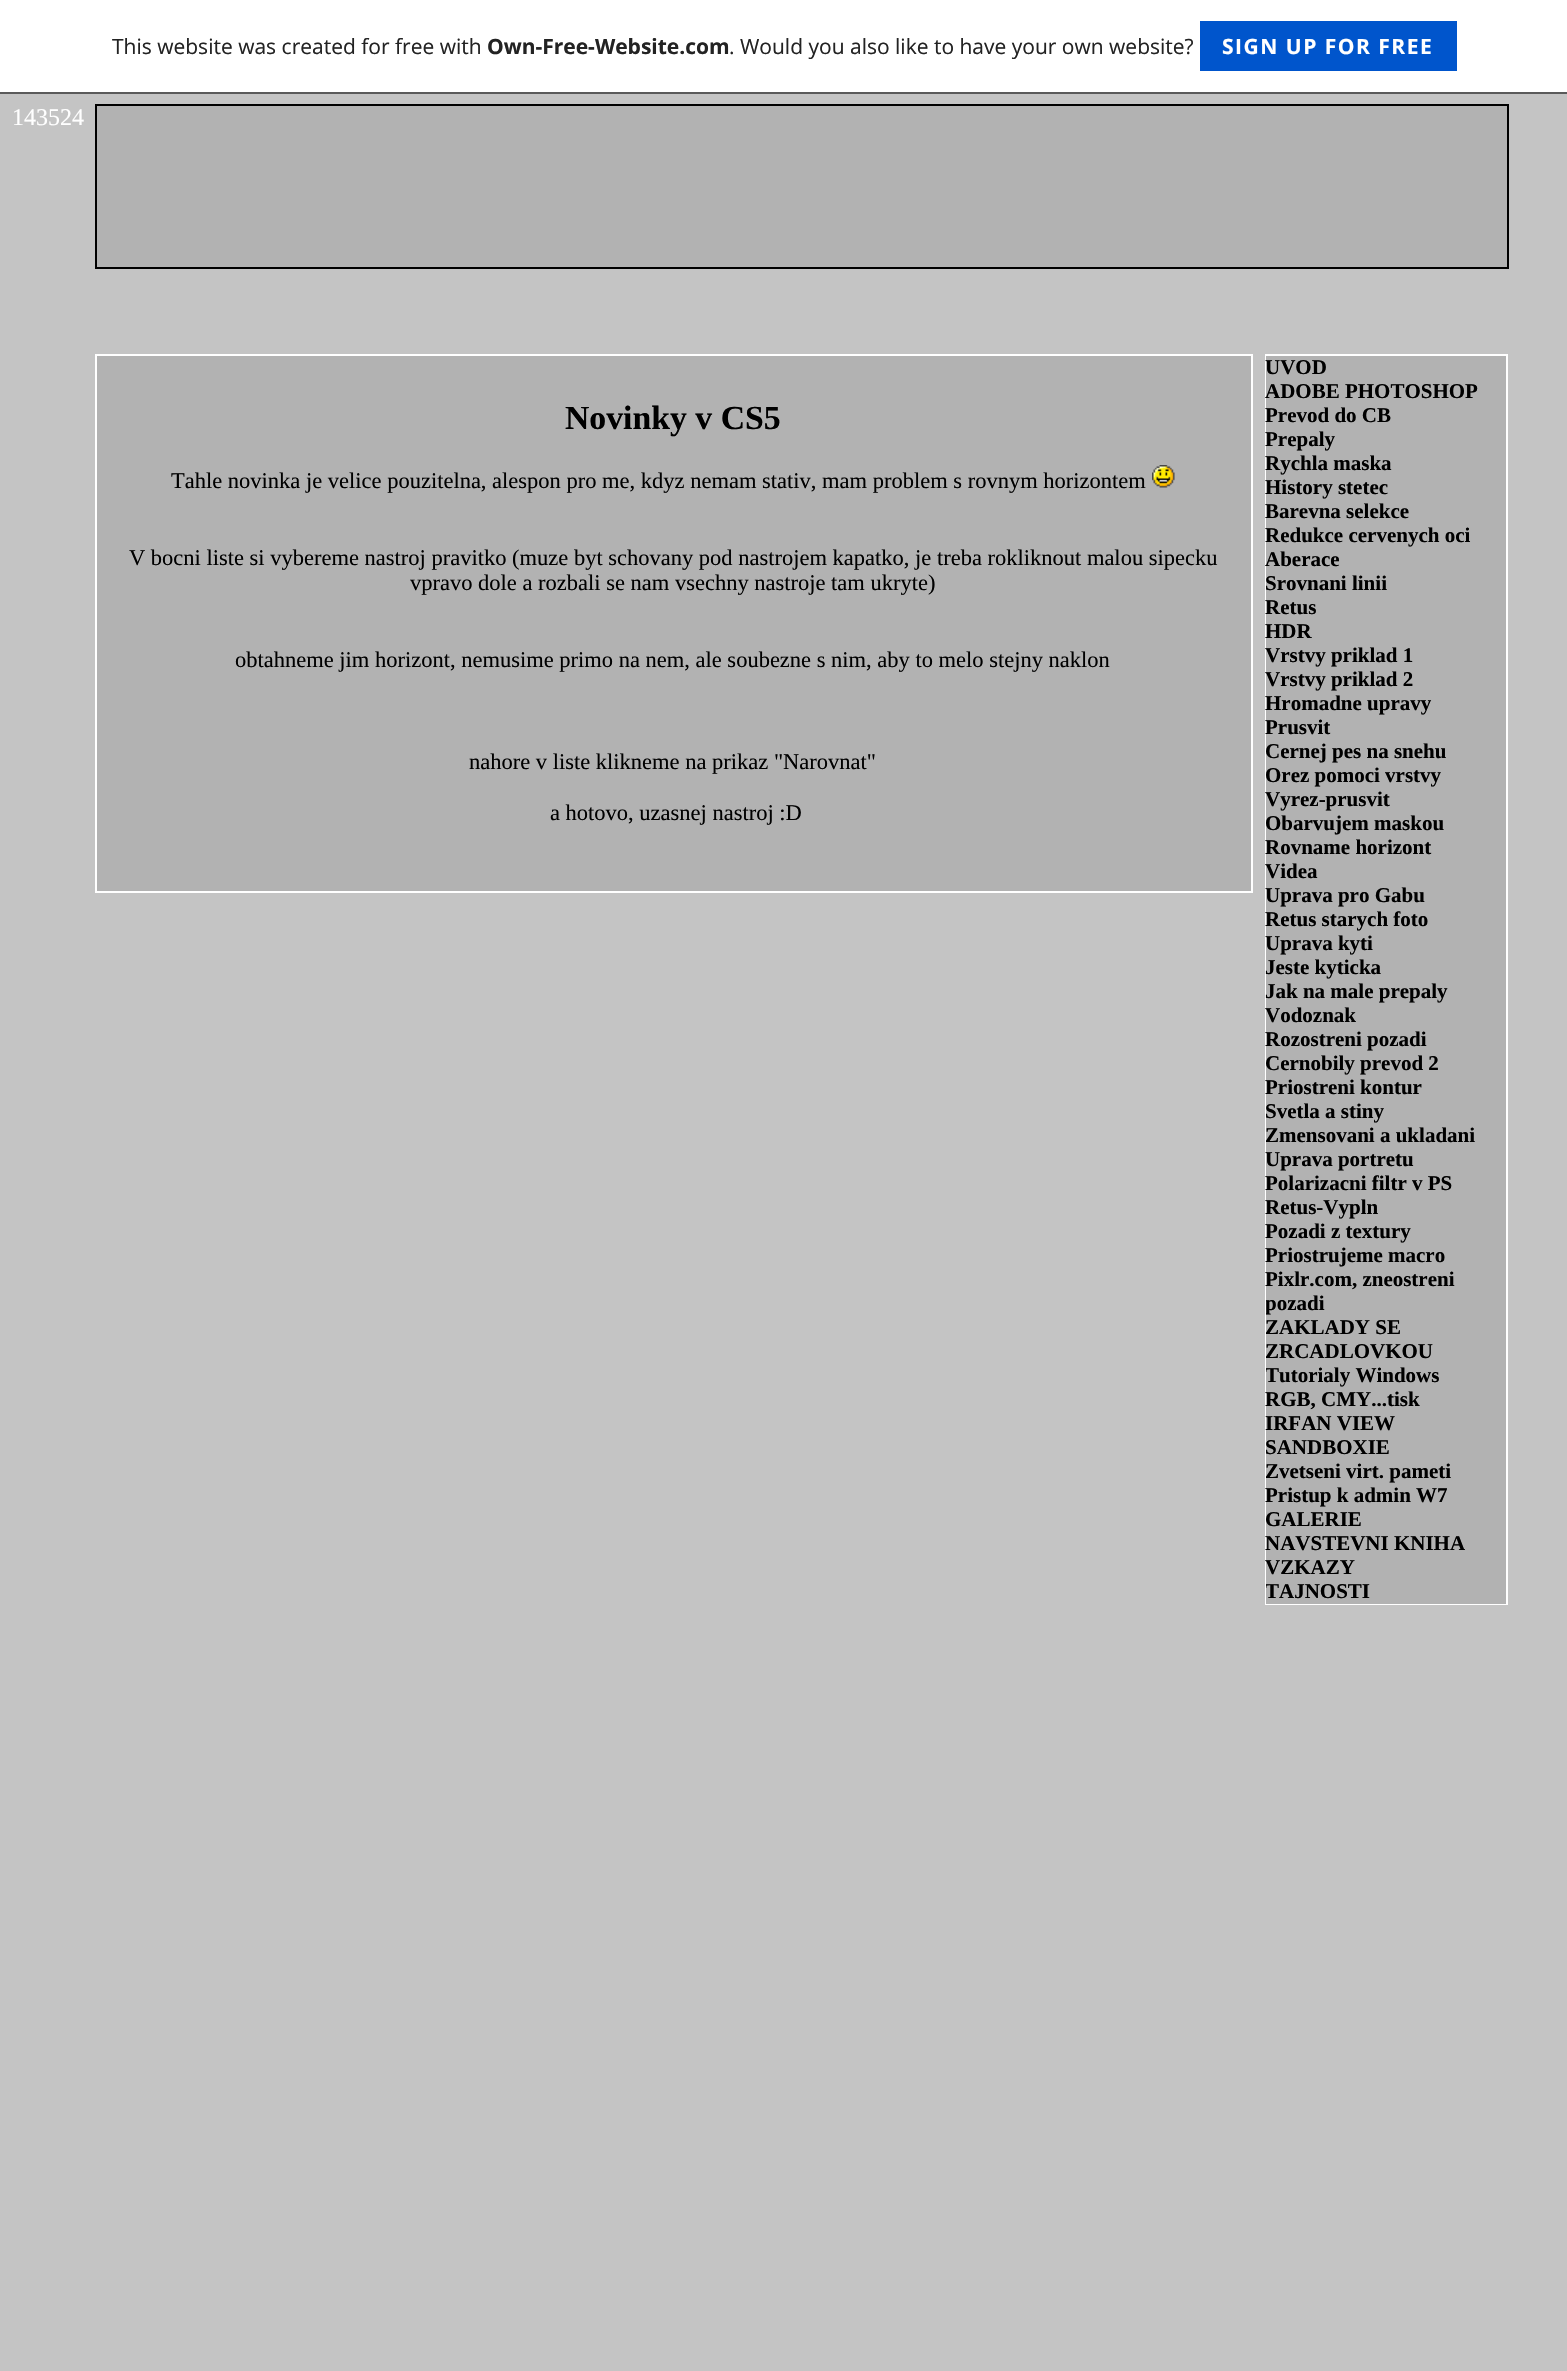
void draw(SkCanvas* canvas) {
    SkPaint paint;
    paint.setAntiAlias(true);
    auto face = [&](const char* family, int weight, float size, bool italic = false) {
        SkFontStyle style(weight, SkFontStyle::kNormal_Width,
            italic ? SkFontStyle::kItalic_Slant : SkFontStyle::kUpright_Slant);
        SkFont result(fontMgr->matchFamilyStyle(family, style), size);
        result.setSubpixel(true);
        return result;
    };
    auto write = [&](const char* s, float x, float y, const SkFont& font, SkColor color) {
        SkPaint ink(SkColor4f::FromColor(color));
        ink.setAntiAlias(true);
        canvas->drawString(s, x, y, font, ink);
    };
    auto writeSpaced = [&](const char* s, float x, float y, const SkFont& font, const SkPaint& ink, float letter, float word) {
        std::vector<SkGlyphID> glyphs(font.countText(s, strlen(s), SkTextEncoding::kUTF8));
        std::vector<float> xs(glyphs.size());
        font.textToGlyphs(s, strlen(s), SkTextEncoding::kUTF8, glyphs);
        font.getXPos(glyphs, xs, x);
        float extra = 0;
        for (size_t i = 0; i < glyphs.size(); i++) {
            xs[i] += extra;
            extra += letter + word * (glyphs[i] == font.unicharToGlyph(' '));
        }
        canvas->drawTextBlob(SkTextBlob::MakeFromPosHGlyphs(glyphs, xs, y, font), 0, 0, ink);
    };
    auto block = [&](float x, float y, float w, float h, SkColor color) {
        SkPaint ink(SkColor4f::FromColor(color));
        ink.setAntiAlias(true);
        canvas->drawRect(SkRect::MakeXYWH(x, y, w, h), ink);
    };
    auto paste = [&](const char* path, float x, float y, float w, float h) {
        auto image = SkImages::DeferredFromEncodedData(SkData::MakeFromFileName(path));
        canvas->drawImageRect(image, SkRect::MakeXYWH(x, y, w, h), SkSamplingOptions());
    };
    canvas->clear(SkColorSetRGB(196, 196, 196));
    block(0, 0, 1567, 92, SK_ColorWHITE);
    block(0, 92, 1567, 2, SkColorSetRGB(90, 90, 90));
    auto kFont1 = face("Open Sans", 400, 21);
    write("This website was created for free with", 112, 54, kFont1, SkColorSetRGB(35, 35, 35));
    auto kFont2 = face("Open Sans", 700, 21);
    write("Own-Free-Website.com", 487, 54, kFont2, SkColorSetRGB(35, 35, 35));
    write(". Would you also like to have your own website?", 729, 54, kFont1, SkColorSetRGB(35, 35, 35));
    block(1200, 21, 257, 50, SkColorSetRGB(0, 85, 204));
    paint.setColor(SK_ColorWHITE);
    writeSpaced("SIGN UP FOR FREE", 1222, 54, kFont2, paint, 1.5f, 0);
    paint.setColor(SkColorSetRGB(178, 178, 178));
    canvas->drawRect(SkRect::MakeXYWH(96, 105, 1412, 163), paint);
    paint.setStyle(SkPaint::kStroke_Style);
    paint.setStrokeWidth(2);
    paint.setColor(SK_ColorBLACK);
    canvas->drawRect(SkRect::MakeXYWH(96, 105, 1412, 163), paint);
    auto kFont3 = face("Liberation Serif", 400, 24);
    write("143524", 12, 125, kFont3, SK_ColorWHITE);
    paint.setStyle(SkPaint::kFill_Style);
    paint.setColor(SkColorSetRGB(178, 178, 178));
    canvas->drawRect(SkRect::MakeXYWH(96, 355, 1156, 537), paint);
    paint.setStyle(SkPaint::kStroke_Style);
    paint.setColor(SK_ColorWHITE);
    canvas->drawRect(SkRect::MakeXYWH(96, 355, 1156, 537), paint);
    auto kFont4 = face("Liberation Serif", 700, 33.75f);
    write("Novinky v CS5", 565, 429, kFont4, SK_ColorBLACK);
    auto kFont5 = face("Liberation Serif", 400, 22.5f);
    write("Tahle novinka je velice pouzitelna, alespon pro me, kdyz nemam stativ, mam problem s rovnym horizontem", 171, 488, kFont5, SK_ColorBLACK);
    paste("pic1.png", 1152, 465, 23, 23);
    write("V bocni liste si vybereme nastroj pravitko (muze byt schovany pod nastrojem kapatko, je treba rokliknout malou sipecku", 129, 565, kFont5, SK_ColorBLACK);
    write("vpravo dole a rozbali se nam vsechny nastroje tam ukryte)", 410, 590, kFont5, SK_ColorBLACK);
    write("obtahneme jim horizont, nemusime primo na nem, ale soubezne s nim, aby to melo stejny naklon", 235, 667, kFont5, SK_ColorBLACK);
    write("nahore v liste klikneme na prikaz \"Narovnat\"", 469, 769, kFont5, SK_ColorBLACK);
    write("a hotovo, uzasnej nastroj :D", 550, 820, kFont5, SK_ColorBLACK);
    canvas->drawRect(SkRect::MakeXYWH(1266, 355, 241, 1249), paint);
    block(1266, 356, 240, 1248, SkColorSetRGB(178, 178, 178));
    auto kFont6 = face("Liberation Serif", 700, 21);
    write("UVOD", 1265, 374, kFont6, SK_ColorBLACK);
    write("ADOBE PHOTOSHOP", 1265, 398, kFont6, SK_ColorBLACK);
    write("Prevod do CB", 1265, 422, kFont6, SK_ColorBLACK);
    write("Prepaly", 1265, 446, kFont6, SK_ColorBLACK);
    write("Rychla maska", 1265, 470, kFont6, SK_ColorBLACK);
    write("History stetec", 1265, 494, kFont6, SK_ColorBLACK);
    write("Barevna selekce", 1265, 518, kFont6, SK_ColorBLACK);
    write("Redukce cervenych oci", 1265, 542, kFont6, SK_ColorBLACK);
    write("Aberace", 1265, 566, kFont6, SK_ColorBLACK);
    write("Srovnani linii", 1265, 590, kFont6, SK_ColorBLACK);
    write("Retus", 1265, 614, kFont6, SK_ColorBLACK);
    write("HDR", 1265, 638, kFont6, SK_ColorBLACK);
    write("Vrstvy priklad 1", 1265, 662, kFont6, SK_ColorBLACK);
    write("Vrstvy priklad 2", 1265, 686, kFont6, SK_ColorBLACK);
    write("Hromadne upravy", 1265, 710, kFont6, SK_ColorBLACK);
    write("Prusvit", 1265, 734, kFont6, SK_ColorBLACK);
    write("Cernej pes na snehu", 1265, 758, kFont6, SK_ColorBLACK);
    write("Orez pomoci vrstvy", 1265, 782, kFont6, SK_ColorBLACK);
    write("Vyrez-prusvit", 1265, 806, kFont6, SK_ColorBLACK);
    write("Obarvujem maskou", 1265, 830, kFont6, SK_ColorBLACK);
    write("Rovname horizont", 1265, 854, kFont6, SK_ColorBLACK);
    write("Videa", 1265, 878, kFont6, SK_ColorBLACK);
    write("Uprava pro Gabu", 1265, 902, kFont6, SK_ColorBLACK);
    write("Retus starych foto", 1265, 926, kFont6, SK_ColorBLACK);
    write("Uprava kyti", 1265, 950, kFont6, SK_ColorBLACK);
    write("Jeste kyticka", 1265, 974, kFont6, SK_ColorBLACK);
    write("Jak na male prepaly", 1265, 998, kFont6, SK_ColorBLACK);
    write("Vodoznak", 1265, 1022, kFont6, SK_ColorBLACK);
    write("Rozostreni pozadi", 1265, 1046, kFont6, SK_ColorBLACK);
    write("Cernobily prevod 2", 1265, 1070, kFont6, SK_ColorBLACK);
    write("Priostreni kontur", 1265, 1094, kFont6, SK_ColorBLACK);
    write("Svetla a stiny", 1265, 1118, kFont6, SK_ColorBLACK);
    write("Zmensovani a ukladani", 1265, 1142, kFont6, SK_ColorBLACK);
    write("Uprava portretu", 1265, 1166, kFont6, SK_ColorBLACK);
    write("Polarizacni filtr v PS", 1265, 1190, kFont6, SK_ColorBLACK);
    write("Retus-Vypln", 1265, 1214, kFont6, SK_ColorBLACK);
    write("Pozadi z textury", 1265, 1238, kFont6, SK_ColorBLACK);
    write("Priostrujeme macro", 1265, 1262, kFont6, SK_ColorBLACK);
    write("Pixlr.com, zneostreni", 1265, 1286, kFont6, SK_ColorBLACK);
    canvas->save();
    canvas->clipRect(SkRect::MakeXYWH(1266, 1268, 240, 48));
    write("pozadi", 1265, 1310, kFont6, SK_ColorBLACK);
    canvas->restore();
    write("ZAKLADY SE", 1265, 1334, kFont6, SK_ColorBLACK);
    write("ZRCADLOVKOU", 1265, 1358, kFont6, SK_ColorBLACK);
    canvas->save();
    canvas->clipRect(SkRect::MakeXYWH(1266, 1364, 240, 24));
    write("Tutorialy Windows", 1265, 1382, kFont6, SK_ColorBLACK);
    canvas->restore();
    write("RGB, CMY...tisk", 1265, 1406, kFont6, SK_ColorBLACK);
    write("IRFAN VIEW", 1265, 1430, kFont6, SK_ColorBLACK);
    write("SANDBOXIE", 1265, 1454, kFont6, SK_ColorBLACK);
    write("Zvetseni virt. pameti", 1265, 1478, kFont6, SK_ColorBLACK);
    write("Pristup k admin W7", 1265, 1502, kFont6, SK_ColorBLACK);
    write("GALERIE", 1265, 1526, kFont6, SK_ColorBLACK);
    write("NAVSTEVNI KNIHA", 1265, 1550, kFont6, SK_ColorBLACK);
    write("VZKAZY", 1265, 1574, kFont6, SK_ColorBLACK);
    canvas->save();
    canvas->clipRect(SkRect::MakeXYWH(1266, 1580, 240, 24));
    write("TAJNOSTI", 1265, 1598, kFont6, SK_ColorBLACK);
    canvas->restore();
}
